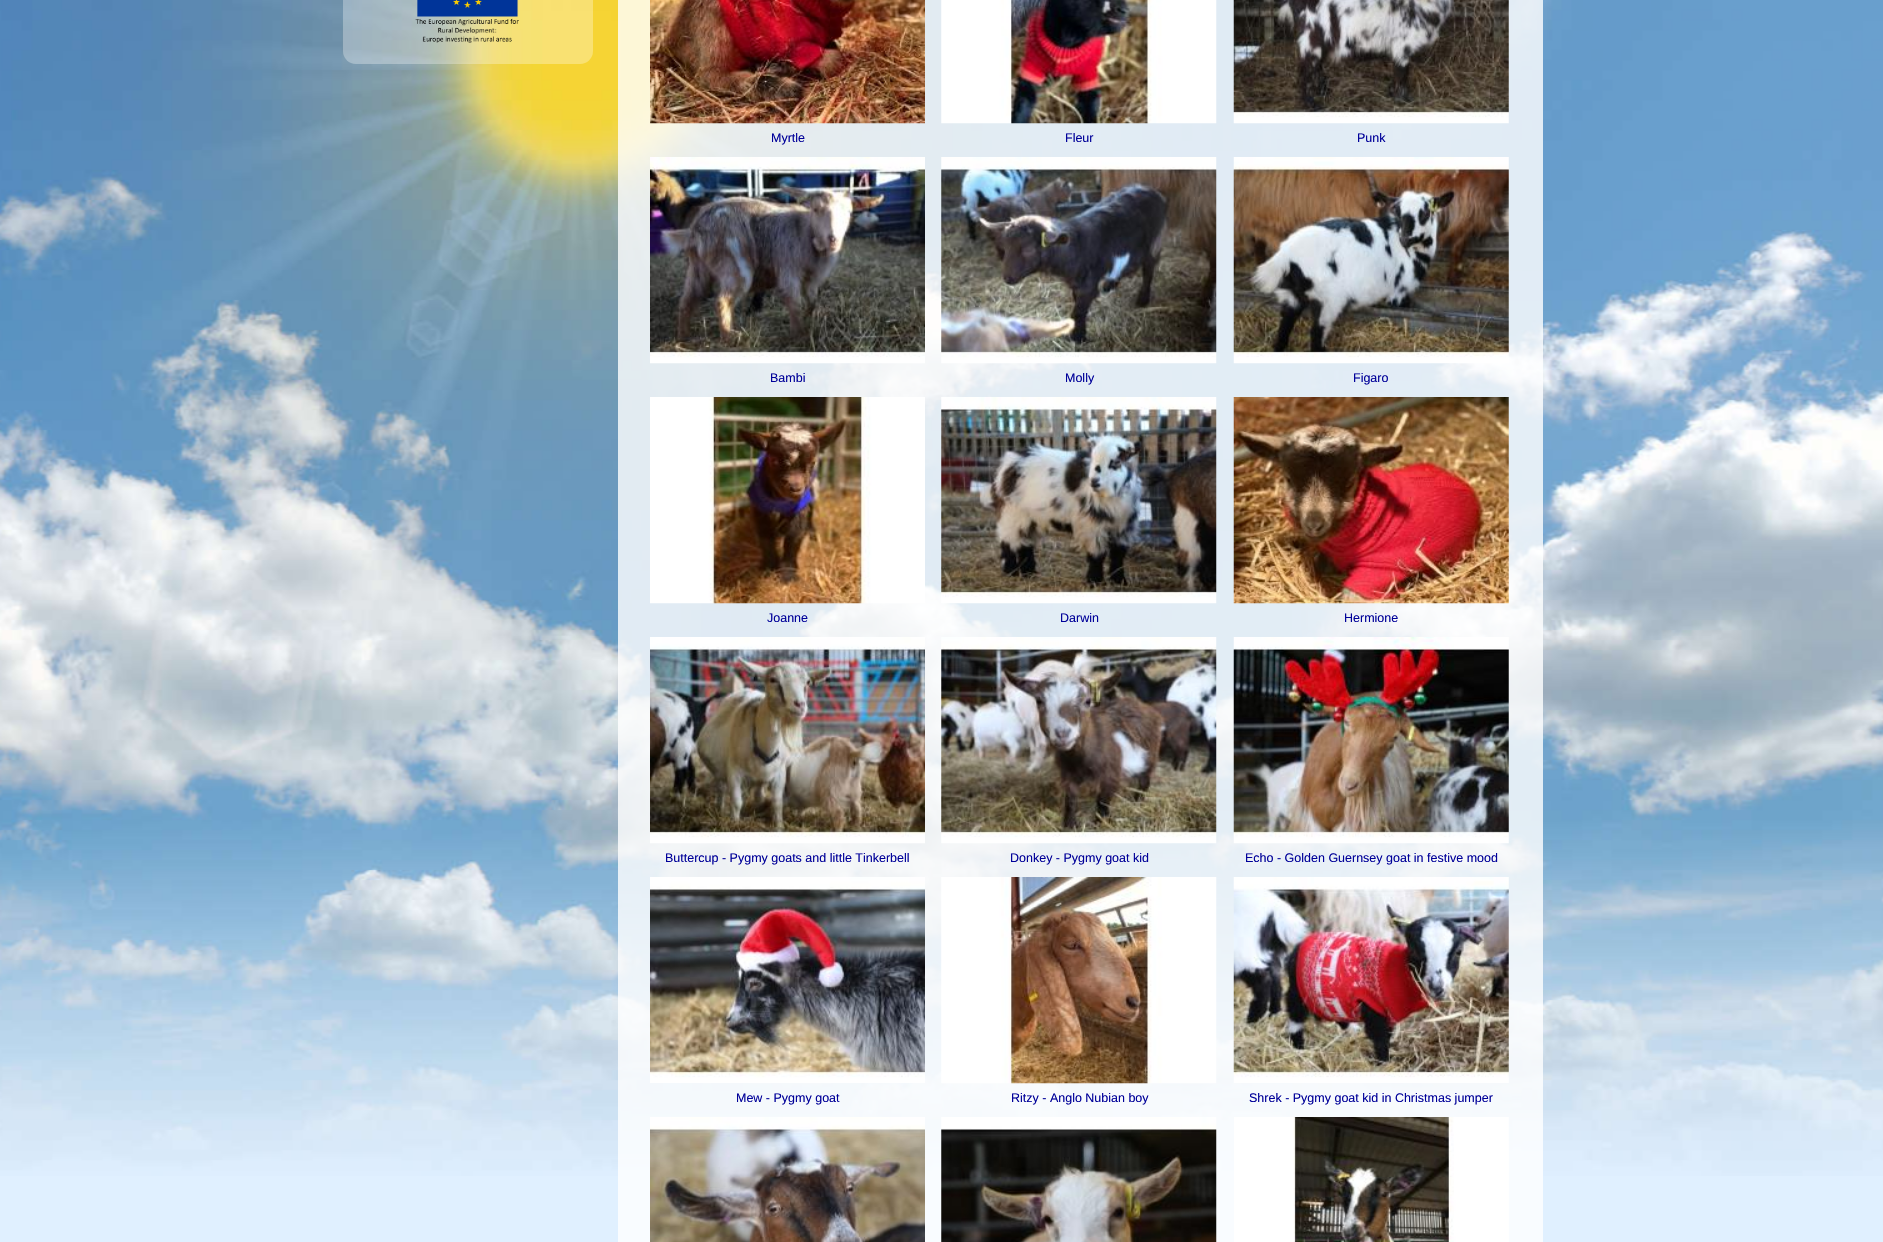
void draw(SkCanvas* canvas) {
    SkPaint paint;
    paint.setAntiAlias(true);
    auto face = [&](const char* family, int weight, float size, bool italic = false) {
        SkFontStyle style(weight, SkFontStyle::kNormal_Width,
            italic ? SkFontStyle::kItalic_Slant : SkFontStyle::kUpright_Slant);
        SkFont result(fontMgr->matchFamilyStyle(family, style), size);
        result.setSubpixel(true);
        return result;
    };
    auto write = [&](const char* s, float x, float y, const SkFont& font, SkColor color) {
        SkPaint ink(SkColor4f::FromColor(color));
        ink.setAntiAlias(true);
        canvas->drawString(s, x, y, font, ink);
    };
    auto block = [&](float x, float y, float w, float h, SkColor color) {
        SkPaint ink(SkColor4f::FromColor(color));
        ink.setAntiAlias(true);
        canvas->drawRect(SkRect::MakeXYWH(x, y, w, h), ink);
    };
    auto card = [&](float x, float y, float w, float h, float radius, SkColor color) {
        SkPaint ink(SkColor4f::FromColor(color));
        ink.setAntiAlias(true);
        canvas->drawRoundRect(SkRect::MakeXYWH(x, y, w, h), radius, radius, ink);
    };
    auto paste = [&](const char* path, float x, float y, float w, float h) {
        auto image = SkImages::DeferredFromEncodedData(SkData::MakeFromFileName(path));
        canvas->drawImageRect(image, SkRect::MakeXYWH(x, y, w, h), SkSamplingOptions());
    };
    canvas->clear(SkColorSetRGB(224, 240, 255));
    paste("pic1.png", 0, 0, 1883, 1176);
    card(343, -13, 250, 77, 13, SkColorSetARGB(77, 255, 255, 255));
    paste("pic2.png", 415, 0, 104, 43);
    block(618, 0, 925, 1242, SkColorSetARGB(204, 255, 255, 255));
    paste("pic3.png", 650, 0, 275, 124);
    auto kFont1 = face("Liberation Sans", 400, 12.5f);
    write("Myrtle", 771, 142, kFont1, SkColorSetRGB(0, 0, 153));
    paste("pic4.png", 941, 0, 276, 124);
    write("Fleur", 1065, 142, kFont1, SkColorSetRGB(0, 0, 153));
    paste("pic5.png", 1233, 0, 276, 124);
    write("Punk", 1357, 142, kFont1, SkColorSetRGB(0, 0, 153));
    paste("pic6.png", 650, 157, 275, 207);
    write("Bambi", 770, 382, kFont1, SkColorSetRGB(0, 0, 153));
    paste("pic7.png", 941, 157, 276, 207);
    write("Molly", 1065, 382, kFont1, SkColorSetRGB(0, 0, 153));
    paste("pic8.png", 1233, 157, 276, 207);
    write("Figaro", 1353, 382, kFont1, SkColorSetRGB(0, 0, 153));
    paste("pic9.png", 650, 397, 275, 207);
    write("Joanne", 767, 622, kFont1, SkColorSetRGB(0, 0, 153));
    paste("pic10.png", 941, 397, 276, 207);
    write("Darwin", 1060, 622, kFont1, SkColorSetRGB(0, 0, 153));
    paste("pic11.png", 1233, 397, 276, 207);
    write("Hermione", 1344, 622, kFont1, SkColorSetRGB(0, 0, 153));
    paste("pic12.png", 650, 637, 275, 207);
    write("Buttercup - Pygmy goats and little Tinkerbell", 665, 862, kFont1, SkColorSetRGB(0, 0, 153));
    paste("pic13.png", 941, 637, 276, 207);
    write("Donkey - Pygmy goat kid", 1010, 862, kFont1, SkColorSetRGB(0, 0, 153));
    paste("pic14.png", 1233, 637, 276, 207);
    write("Echo - Golden Guernsey goat in festive mood", 1245, 862, kFont1, SkColorSetRGB(0, 0, 153));
    paste("pic15.png", 650, 877, 275, 206);
    write("Mew - Pygmy goat", 736, 1102, kFont1, SkColorSetRGB(0, 0, 153));
    paste("pic16.png", 941, 877, 276, 207);
    write("Ritzy - Anglo Nubian boy", 1011, 1102, kFont1, SkColorSetRGB(0, 0, 153));
    paste("pic17.png", 1233, 877, 276, 206);
    write("Shrek - Pygmy goat kid in Christmas jumper", 1249, 1102, kFont1, SkColorSetRGB(0, 0, 153));
    paste("pic18.png", 650, 1117, 275, 125);
    paste("pic19.png", 941, 1117, 276, 125);
    paste("pic20.png", 1234, 1117, 275, 125);
}
